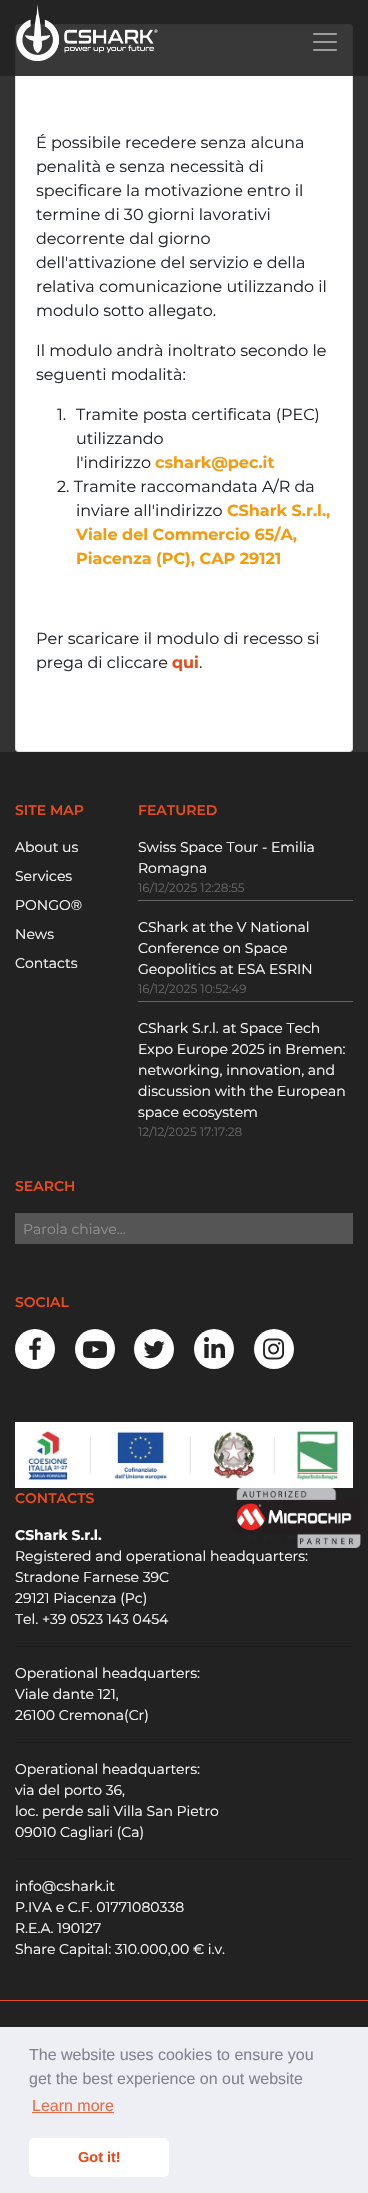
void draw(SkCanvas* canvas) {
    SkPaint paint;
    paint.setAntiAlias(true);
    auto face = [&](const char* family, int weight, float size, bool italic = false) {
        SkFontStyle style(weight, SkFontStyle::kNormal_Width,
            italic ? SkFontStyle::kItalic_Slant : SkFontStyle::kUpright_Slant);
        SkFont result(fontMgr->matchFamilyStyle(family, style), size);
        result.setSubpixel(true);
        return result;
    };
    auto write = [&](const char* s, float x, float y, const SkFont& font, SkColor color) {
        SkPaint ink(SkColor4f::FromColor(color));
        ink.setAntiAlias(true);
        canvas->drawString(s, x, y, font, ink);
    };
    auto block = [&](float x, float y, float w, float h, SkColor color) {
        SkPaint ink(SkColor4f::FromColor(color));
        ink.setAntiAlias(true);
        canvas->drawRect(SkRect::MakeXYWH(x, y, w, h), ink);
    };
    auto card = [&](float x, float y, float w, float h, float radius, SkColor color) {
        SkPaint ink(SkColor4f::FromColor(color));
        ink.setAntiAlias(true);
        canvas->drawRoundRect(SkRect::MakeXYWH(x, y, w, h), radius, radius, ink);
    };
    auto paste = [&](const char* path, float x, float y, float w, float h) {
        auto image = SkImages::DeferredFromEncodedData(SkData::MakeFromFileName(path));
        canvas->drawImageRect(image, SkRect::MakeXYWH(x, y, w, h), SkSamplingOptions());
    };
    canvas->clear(SkColorSetRGB(51, 51, 51));
    card(15, 24, 338, 728, 4, SK_ColorWHITE);
    paint.setStyle(SkPaint::kStroke_Style);
    paint.setStrokeWidth(1);
    paint.setColor(SkColorSetARGB(31, 0, 0, 0));
    canvas->drawRoundRect(SkRect::MakeXYWH(15.5f, 24.5f, 337, 727), 3.5f, 3.5f, paint);
    block(0, 0, 368, 76, SkColorSetARGB(230, 34, 34, 34));
    paste("pic1.png", 16, 4, 142, 57);
    paste("pic2.png", 313, 33, 24, 18);
    auto kFont1 = face("Montserrat", 400, 16);
    write("É possibile recedere senza alcuna", 36, 148, kFont1, SkColorSetRGB(33, 37, 41));
    write("penalità e senza necessità di", 36, 172, kFont1, SkColorSetRGB(33, 37, 41));
    write("specificare la motivazione entro il", 36, 196, kFont1, SkColorSetRGB(33, 37, 41));
    write("termine di 30 giorni lavorativi", 36, 220, kFont1, SkColorSetRGB(33, 37, 41));
    write("decorrente dal giorno", 36, 244, kFont1, SkColorSetRGB(33, 37, 41));
    write("dell'attivazione del servizio e della", 36, 268, kFont1, SkColorSetRGB(33, 37, 41));
    write("relativa comunicazione utilizzando il", 36, 292, kFont1, SkColorSetRGB(33, 37, 41));
    write("modulo sotto allegato.", 36, 316, kFont1, SkColorSetRGB(33, 37, 41));
    write("Il modulo andrà inoltrato secondo le", 36, 356, kFont1, SkColorSetRGB(33, 37, 41));
    write("seguenti modalità:", 36, 380, kFont1, SkColorSetRGB(33, 37, 41));
    write("1.", 57, 420, kFont1, SkColorSetRGB(33, 37, 41));
    write("Tramite posta certificata (PEC)", 76, 420, kFont1, SkColorSetRGB(33, 37, 41));
    write("utilizzando", 76, 444, kFont1, SkColorSetRGB(33, 37, 41));
    write("l'indirizzo", 76, 468, kFont1, SkColorSetRGB(33, 37, 41));
    auto kFont2 = face("Montserrat", 700, 16);
    write("cshark@pec.it", 155, 468, kFont2, SkColorSetRGB(243, 156, 18));
    write("2. Tramite raccomandata A/R da", 57, 492, kFont1, SkColorSetRGB(33, 37, 41));
    write("inviare all'indirizzo", 76, 516, kFont1, SkColorSetRGB(33, 37, 41));
    write("CShark S.r.l.,", 227, 516, kFont2, SkColorSetRGB(243, 156, 18));
    write("Viale del Commercio 65/A,", 76, 540, kFont2, SkColorSetRGB(243, 156, 18));
    write("Piacenza (PC), CAP 29121", 76, 564, kFont2, SkColorSetRGB(243, 156, 18));
    write("Per scaricare il modulo di recesso si", 36, 644, kFont1, SkColorSetRGB(33, 37, 41));
    write("prega di cliccare", 36, 668, kFont1, SkColorSetRGB(33, 37, 41));
    write("qui", 172, 668, kFont2, SkColorSetRGB(231, 76, 27));
    write(".", 199, 668, kFont1, SkColorSetRGB(33, 37, 41));
    block(0, 752, 368, 1275, SkColorSetRGB(34, 34, 34));
    auto kFont3 = face("Montserrat", 600, 14);
    write("SITE MAP", 15, 815, kFont3, SkColorSetRGB(231, 76, 27));
    auto kFont4 = face("Montserrat", 400, 14);
    write("About us", 15, 852, kFont4, SK_ColorWHITE);
    write("Services", 15, 881, kFont4, SK_ColorWHITE);
    write("PONGO®", 15, 910, kFont4, SK_ColorWHITE);
    write("News", 15, 939, kFont4, SK_ColorWHITE);
    write("Contacts", 15, 968, kFont4, SK_ColorWHITE);
    write("FEATURED", 138, 815, kFont3, SkColorSetRGB(231, 76, 27));
    write("Swiss Space Tour - Emilia", 138, 852, kFont4, SK_ColorWHITE);
    write("Romagna", 138, 873, kFont4, SK_ColorWHITE);
    block(138, 900, 215, 1, SkColorSetRGB(102, 102, 102));
    auto kFont5 = face("Montserrat", 400, 12);
    write("16/12/2025 12:28:55", 138, 892, kFont5, SkColorSetRGB(102, 102, 102));
    write("CShark at the V National", 138, 932, kFont4, SK_ColorWHITE);
    write("Conference on Space", 138, 953, kFont4, SK_ColorWHITE);
    write("Geopolitics at ESA ESRIN", 138, 974, kFont4, SK_ColorWHITE);
    block(138, 1001, 215, 1, SkColorSetRGB(102, 102, 102));
    write("16/12/2025 10:52:49", 138, 993, kFont5, SkColorSetRGB(102, 102, 102));
    write("CShark S.r.l. at Space Tech", 138, 1033, kFont4, SK_ColorWHITE);
    write("Expo Europe 2025 in Bremen:", 138, 1054, kFont4, SK_ColorWHITE);
    write("networking, innovation, and", 138, 1075, kFont4, SK_ColorWHITE);
    write("discussion with the European", 138, 1096, kFont4, SK_ColorWHITE);
    write("space ecosystem", 138, 1117, kFont4, SK_ColorWHITE);
    write("12/12/2025 17:17:28", 138, 1136, kFont5, SkColorSetRGB(102, 102, 102));
    write("SEARCH", 15, 1191, kFont3, SkColorSetRGB(231, 76, 27));
    block(15, 1213, 338, 31, SkColorSetRGB(85, 85, 85));
    write("Parola chiave…", 23, 1234, kFont4, SkColorSetRGB(145, 145, 145));
    write("SOCIAL", 15, 1307, kFont3, SkColorSetRGB(231, 76, 27));
    paint.setStyle(SkPaint::kFill_Style);
    paint.setColor(SK_ColorWHITE);
    canvas->drawCircle(35, 1349, 20, paint);
    paste("pic3.png", 29, 1337, 12, 23);
    canvas->drawCircle(95, 1349, 20, paint);
    paste("pic4.png", 83, 1341, 24, 18);
    canvas->drawCircle(154, 1349, 20, paint);
    paste("pic5.png", 143, 1341, 22, 18);
    canvas->drawCircle(214, 1349, 20, paint);
    paste("pic6.png", 204, 1337, 21, 21);
    canvas->drawCircle(274, 1349, 20, paint);
    paste("pic7.png", 263, 1338, 22, 22);
    paste("pic8.png", 15, 1422, 338, 66);
    write("CONTACTS", 15, 1503, kFont3, SkColorSetRGB(231, 76, 27));
    paste("pic9.png", 236, 1488, 125, 60);
    auto kFont6 = face("Montserrat", 700, 14);
    write("CShark S.r.l.", 15, 1540, kFont6, SK_ColorWHITE);
    write("Registered and operational headquarters:", 15, 1561, kFont4, SK_ColorWHITE);
    write("Stradone Farnese 39C", 15, 1582, kFont4, SK_ColorWHITE);
    write("29121 Piacenza (Pc)", 15, 1603, kFont4, SK_ColorWHITE);
    write("Tel. +39 0523 143 0454", 15, 1624, kFont4, SK_ColorWHITE);
    block(15, 1646, 338, 1, SkColorSetRGB(31, 31, 31));
    write("Operational headquarters:", 15, 1678, kFont4, SK_ColorWHITE);
    write("Viale dante 121,", 15, 1699, kFont4, SK_ColorWHITE);
    write("26100 Cremona(Cr)", 15, 1720, kFont4, SK_ColorWHITE);
    block(15, 1742, 338, 1, SkColorSetRGB(31, 31, 31));
    write("Operational headquarters:", 15, 1774, kFont4, SK_ColorWHITE);
    write("via del porto 36,", 15, 1795, kFont4, SK_ColorWHITE);
    write("loc. perde sali Villa San Pietro", 15, 1816, kFont4, SK_ColorWHITE);
    write("09010 Cagliari (Ca)", 15, 1837, kFont4, SK_ColorWHITE);
    block(15, 1859, 338, 1, SkColorSetRGB(31, 31, 31));
    write("info@cshark.it", 15, 1891, kFont4, SK_ColorWHITE);
    write("P.IVA e C.F. 01771080338", 15, 1912, kFont4, SK_ColorWHITE);
    write("R.E.A. 190127", 15, 1933, kFont4, SK_ColorWHITE);
    write("Share Capital: 310.000,00 € i.v.", 15, 1954, kFont4, SK_ColorWHITE);
    block(0, 2000, 368, 1, SkColorSetRGB(231, 76, 27));
    block(0, 2027, 368, 166, SkColorSetRGB(237, 239, 245));
    auto kFont7 = face("Liberation Sans", 400, 16);
    write("The website uses cookies to ensure you", 29, 2060, kFont7, SkColorSetRGB(131, 131, 145));
    write("get the best experience on out website", 29, 2084, kFont7, SkColorSetRGB(131, 131, 145));
    write("Learn more", 32, 2111, kFont7, SkColorSetRGB(232, 109, 71));
    block(32, 2112, 82, 1, SkColorSetRGB(232, 109, 71));
    card(29, 2138, 140, 39, 5, SK_ColorWHITE);
    auto kFont8 = face("Liberation Sans", 700, 14.5f);
    write("Got it!", 78, 2162, kFont8, SkColorSetRGB(231, 76, 27));
}
